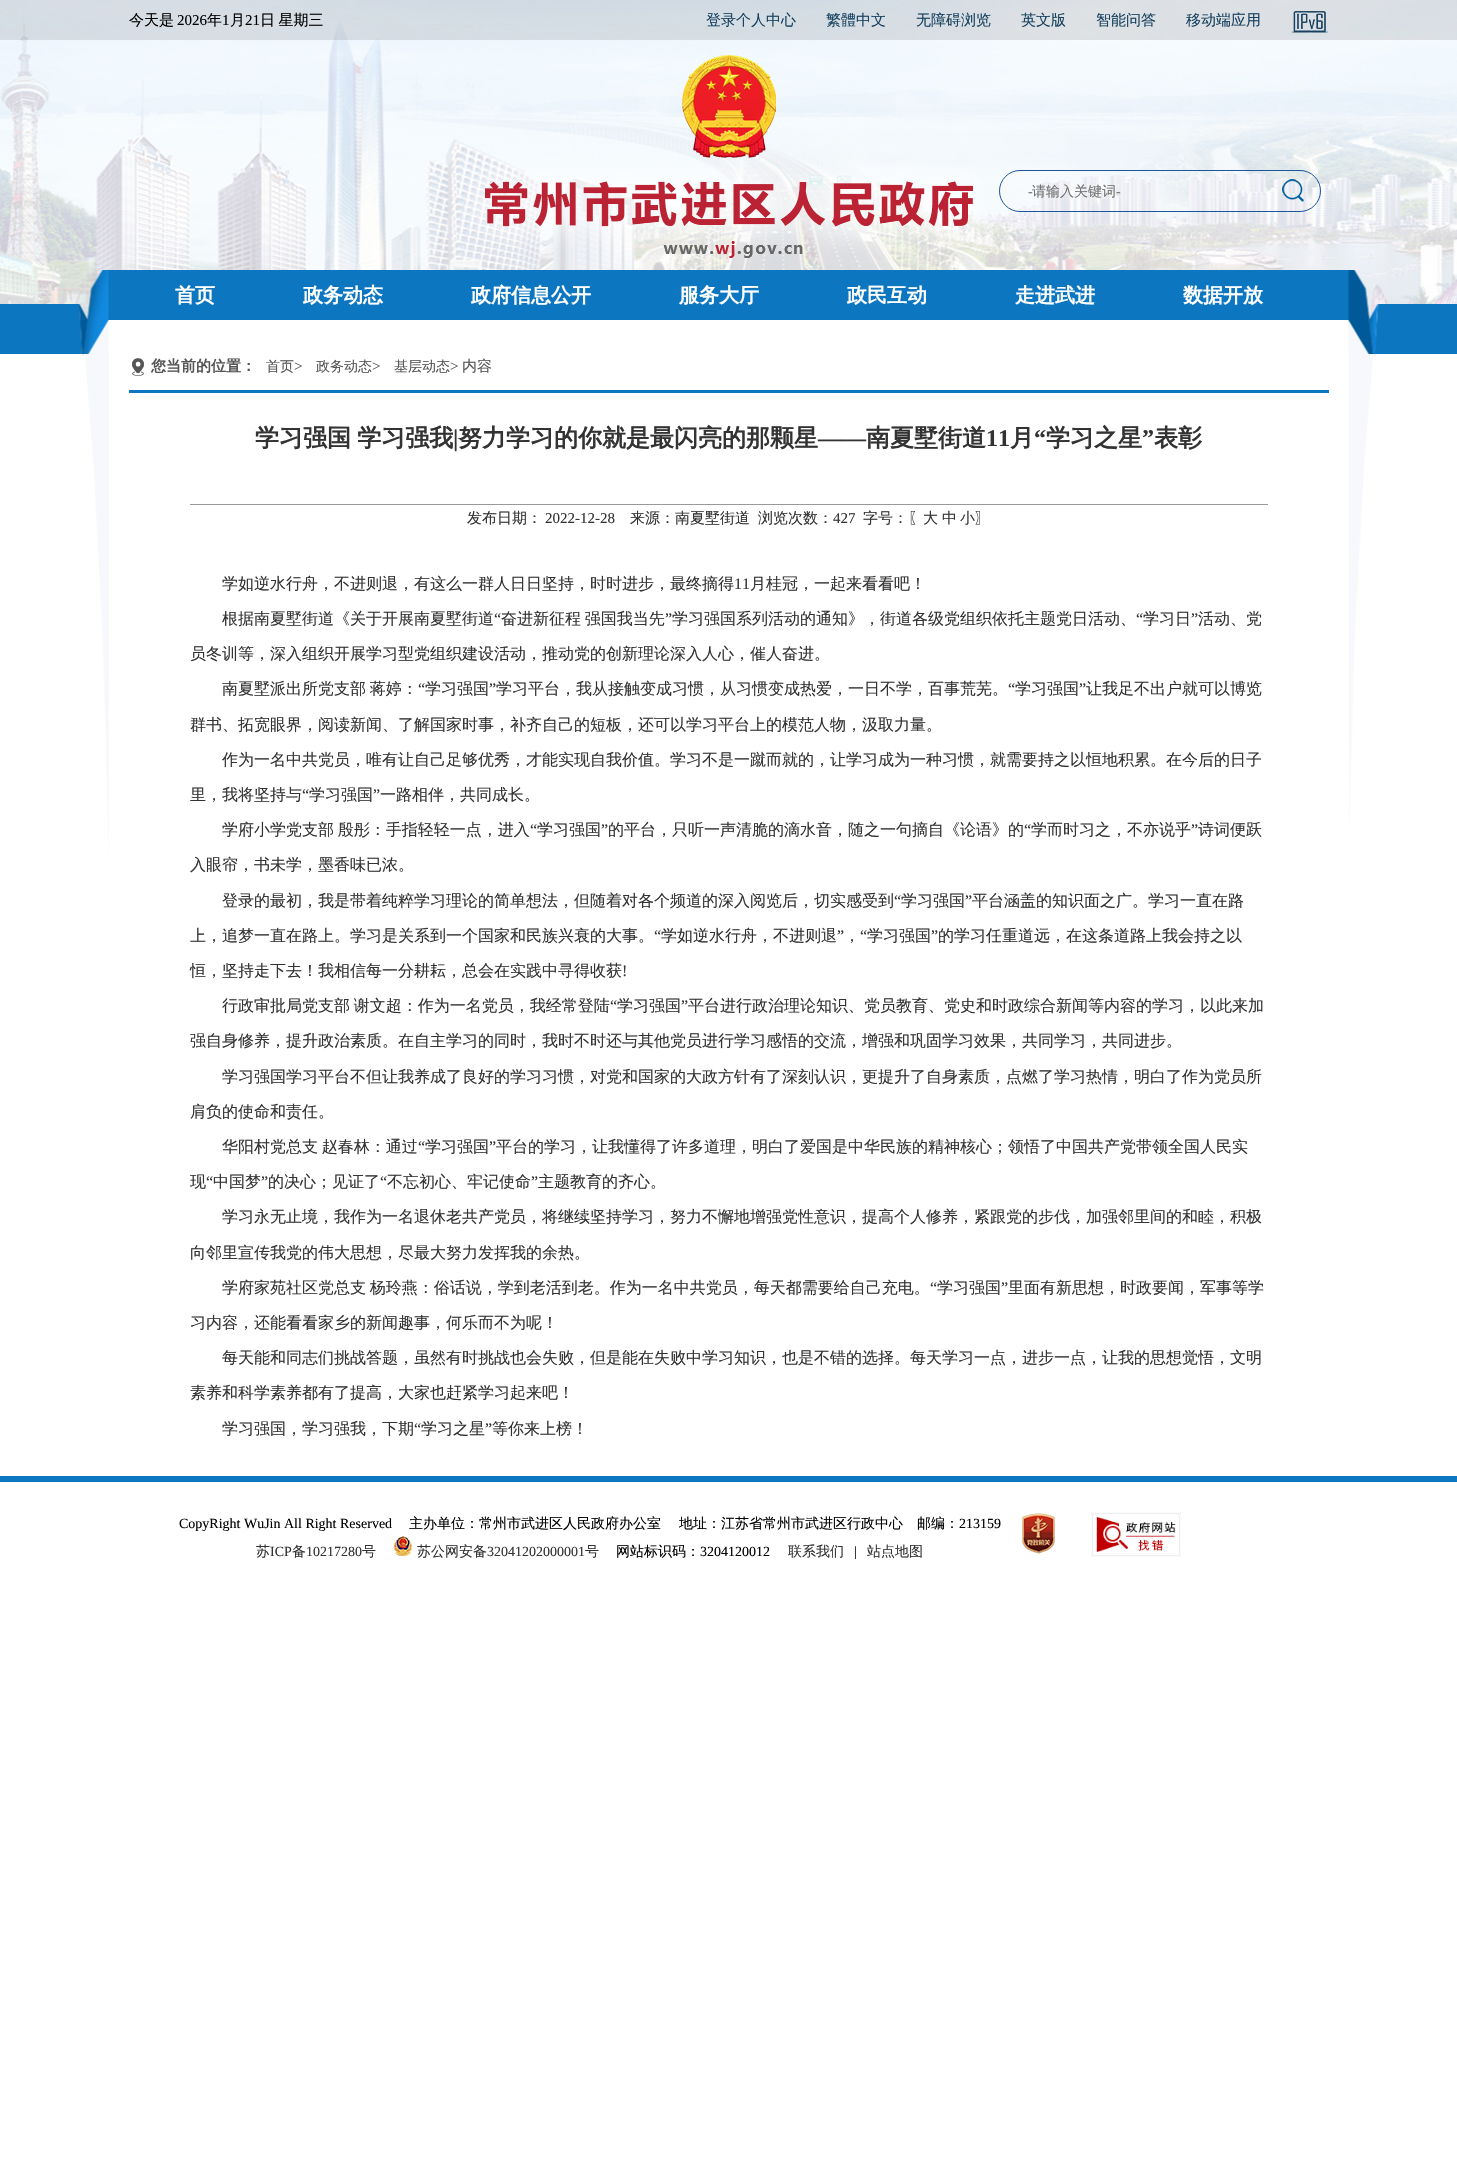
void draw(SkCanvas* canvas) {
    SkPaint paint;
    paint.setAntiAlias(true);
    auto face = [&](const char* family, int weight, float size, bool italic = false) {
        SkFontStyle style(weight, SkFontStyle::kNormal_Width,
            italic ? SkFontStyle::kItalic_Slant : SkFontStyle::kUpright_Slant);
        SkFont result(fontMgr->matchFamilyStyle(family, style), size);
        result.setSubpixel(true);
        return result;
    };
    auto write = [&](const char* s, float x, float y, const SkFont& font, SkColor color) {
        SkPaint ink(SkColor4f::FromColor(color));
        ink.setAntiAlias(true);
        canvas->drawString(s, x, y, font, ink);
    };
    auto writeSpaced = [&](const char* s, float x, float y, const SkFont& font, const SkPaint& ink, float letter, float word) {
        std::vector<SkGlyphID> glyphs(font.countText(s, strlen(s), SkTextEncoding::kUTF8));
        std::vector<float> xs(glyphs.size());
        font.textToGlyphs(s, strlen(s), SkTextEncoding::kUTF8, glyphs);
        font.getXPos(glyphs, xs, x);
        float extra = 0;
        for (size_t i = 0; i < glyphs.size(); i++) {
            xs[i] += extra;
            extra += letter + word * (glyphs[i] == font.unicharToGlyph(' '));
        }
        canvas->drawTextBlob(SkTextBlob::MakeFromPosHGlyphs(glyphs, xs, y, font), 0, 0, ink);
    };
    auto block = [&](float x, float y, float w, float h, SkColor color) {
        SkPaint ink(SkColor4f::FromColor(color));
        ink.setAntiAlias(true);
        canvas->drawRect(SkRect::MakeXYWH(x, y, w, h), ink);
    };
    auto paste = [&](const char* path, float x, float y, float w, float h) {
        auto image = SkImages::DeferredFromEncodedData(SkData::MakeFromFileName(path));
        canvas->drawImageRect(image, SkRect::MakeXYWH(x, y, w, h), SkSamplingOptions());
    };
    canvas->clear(SK_ColorWHITE);
    paste("pic1.png", 0, 0, 1457, 320);
    block(0, 0, 1457, 40, SkColorSetARGB(26, 0, 0, 0));
    auto kFont1 = face("WenQuanYi Zen Hei", 500, 15);
    write("今天是", 129, 25, kFont1, SK_ColorBLACK);
    auto kFont2 = face("Liberation Serif", 400, 15);
    write("2026", 177, 25, kFont2, SK_ColorBLACK);
    write("年", 207, 25, kFont1, SK_ColorBLACK);
    write("1", 222, 25, kFont2, SK_ColorBLACK);
    write("月", 230, 25, kFont1, SK_ColorBLACK);
    write("21", 245, 25, kFont2, SK_ColorBLACK);
    paint.setColor(SK_ColorBLACK);
    writeSpaced("日 星期三", 260, 25, kFont1, paint, 0, -1);
    write("登录个人中心", 706, 25, kFont1, SkColorSetRGB(23, 65, 94));
    write("繁體中文", 826, 25, kFont1, SkColorSetRGB(23, 65, 94));
    write("无障碍浏览", 916, 25, kFont1, SkColorSetRGB(23, 65, 94));
    write("英文版", 1021, 25, kFont1, SkColorSetRGB(23, 65, 94));
    write("智能问答", 1096, 25, kFont1, SkColorSetRGB(23, 65, 94));
    write("移动端应用", 1186, 25, kFont1, SkColorSetRGB(23, 65, 94));
    paste("pic2.png", 1291, 11, 37, 22);
    paste("pic3.png", 467, 55, 515, 203);
    paint.setColor(SkColorSetARGB(26, 255, 255, 255));
    canvas->drawRoundRect(SkRect::MakeXYWH(999.5f, 170.5f, 321, 41), 20.5f, 20.5f, paint);
    paint.setStyle(SkPaint::kStroke_Style);
    paint.setStrokeWidth(1);
    paint.setColor(SkColorSetRGB(27, 87, 157));
    canvas->drawRoundRect(SkRect::MakeXYWH(999.5f, 170.5f, 321, 41), 20.5f, 20.5f, paint);
    auto kFont3 = face("Liberation Serif", 400, 14);
    write("-", 1028, 196, kFont3, SkColorSetRGB(113, 112, 112));
    auto kFont4 = face("WenQuanYi Zen Hei", 500, 14);
    write("请输入关键词", 1032, 196, kFont4, SkColorSetRGB(113, 112, 112));
    write("-", 1116, 196, kFont3, SkColorSetRGB(113, 112, 112));
    paste("pic4.png", 1282, 179, 22, 23);
    paste("pic5.png", 0, 270, 1457, 84);
    auto kFont5 = face("WenQuanYi Zen Hei", 700, 20);
    write("首页", 175, 302, kFont5, SK_ColorWHITE);
    write("政务动态", 303, 302, kFont5, SK_ColorWHITE);
    write("政府信息公开", 471, 302, kFont5, SK_ColorWHITE);
    write("服务大厅", 679, 302, kFont5, SK_ColorWHITE);
    write("政民互动", 847, 302, kFont5, SK_ColorWHITE);
    write("走进武进", 1015, 302, kFont5, SK_ColorWHITE);
    write("数据开放", 1183, 302, kFont5, SK_ColorWHITE);
    paste("pic6.png", 82, 354, 1294, 501);
    paste("pic7.png", 132, 358, 12, 18);
    auto kFont6 = face("WenQuanYi Zen Hei", 700, 15);
    write("您当前的位置：", 151, 371, kFont6, SkColorSetRGB(85, 85, 85));
    write("首页", 266, 371, kFont4, SkColorSetRGB(85, 85, 85));
    write(">", 294, 371, kFont2, SkColorSetRGB(85, 85, 85));
    write("政务动态", 316, 371, kFont4, SkColorSetRGB(85, 85, 85));
    write(">", 372, 371, kFont2, SkColorSetRGB(85, 85, 85));
    write("基层动态", 394, 371, kFont4, SkColorSetRGB(85, 85, 85));
    write(">", 450, 371, kFont2, SkColorSetRGB(85, 85, 85));
    write("内容", 462, 371, kFont1, SkColorSetRGB(85, 85, 85));
    block(129, 390, 1200, 3, SkColorSetRGB(12, 118, 193));
    block(190, 504, 1078, 1, SkColorSetRGB(153, 153, 153));
    auto kFont7 = face("WenQuanYi Zen Hei", 700, 24);
    paint.setStyle(SkPaint::kFill_Style);
    paint.setColor(SkColorSetRGB(51, 51, 51));
    writeSpaced("学习强国 学习强我", 255, 446, kFont7, paint, 0, -1);
    auto kFont8 = face("Liberation Serif", 700, 24);
    write("|", 453, 446, kFont8, SkColorSetRGB(51, 51, 51));
    write("努力学习的你就是最闪亮的那颗星", 458, 446, kFont7, SkColorSetRGB(51, 51, 51));
    write("——", 818, 446, kFont8, SkColorSetRGB(51, 51, 51));
    write("南夏墅街道", 866, 446, kFont7, SkColorSetRGB(51, 51, 51));
    write("11", 986, 446, kFont8, SkColorSetRGB(51, 51, 51));
    write("月", 1010, 446, kFont7, SkColorSetRGB(51, 51, 51));
    write("“", 1034, 446, kFont8, SkColorSetRGB(51, 51, 51));
    write("学习之星", 1046, 446, kFont7, SkColorSetRGB(51, 51, 51));
    write("”", 1142, 446, kFont8, SkColorSetRGB(51, 51, 51));
    write("表彰", 1154, 446, kFont7, SkColorSetRGB(51, 51, 51));
    write("发布日期：", 467, 523, kFont1, SkColorSetRGB(51, 51, 51));
    write("2022-12-28", 545, 523, kFont2, SkColorSetRGB(51, 51, 51));
    write("来源：南夏墅街道", 630, 523, kFont1, SkColorSetRGB(51, 51, 51));
    write("浏览次数：", 758, 523, kFont1, SkColorSetRGB(51, 51, 51));
    write("427", 833, 523, kFont2, SkColorSetRGB(51, 51, 51));
    write("字号：〖大", 863, 523, kFont1, SkColorSetRGB(51, 51, 51));
    write("中", 942, 523, kFont1, SkColorSetRGB(51, 51, 51));
    write("小〗", 960, 523, kFont1, SkColorSetRGB(51, 51, 51));
    auto kFont9 = face("WenQuanYi Zen Hei", 500, 16);
    write("学如逆水行舟，不进则退，有这么一群人日日坚持，时时进步，最终摘得", 222, 589, kFont9, SkColorSetRGB(51, 51, 51));
    auto kFont10 = face("Liberation Serif", 400, 16);
    write("11", 734, 589, kFont10, SkColorSetRGB(51, 51, 51));
    write("月桂冠，一起来看看吧！", 750, 589, kFont9, SkColorSetRGB(51, 51, 51));
    write("根据南夏墅街道《关于开展南夏墅街道", 222, 624, kFont9, SkColorSetRGB(51, 51, 51));
    write("“", 494, 624, kFont10, SkColorSetRGB(51, 51, 51));
    writeSpaced("奋进新征程 强国我当先", 501, 624, kFont9, paint, 0, -1);
    write("”", 665, 624, kFont10, SkColorSetRGB(51, 51, 51));
    write("学习强国系列活动的通知》，街道各级党组织依托主题党日活动、", 672, 624, kFont9, SkColorSetRGB(51, 51, 51));
    write("“", 1136, 624, kFont10, SkColorSetRGB(51, 51, 51));
    write("学习日", 1143, 624, kFont9, SkColorSetRGB(51, 51, 51));
    write("”", 1191, 624, kFont10, SkColorSetRGB(51, 51, 51));
    write("活动、党", 1198, 624, kFont9, SkColorSetRGB(51, 51, 51));
    write("员冬训等，深入组织开展学习型党组织建设活动，推动党的创新理论深入人心，催人奋进。", 190, 659, kFont9, SkColorSetRGB(51, 51, 51));
    writeSpaced("南夏墅派出所党支部 蒋婷：", 222, 694, kFont9, paint, 0, -1);
    write("“", 418, 694, kFont10, SkColorSetRGB(51, 51, 51));
    write("学习强国", 425, 694, kFont9, SkColorSetRGB(51, 51, 51));
    write("”", 489, 694, kFont10, SkColorSetRGB(51, 51, 51));
    write("学习平台，我从接触变成习惯，从习惯变成热爱，一日不学，百事荒芜。", 496, 694, kFont9, SkColorSetRGB(51, 51, 51));
    write("“", 1008, 694, kFont10, SkColorSetRGB(51, 51, 51));
    write("学习强国", 1015, 694, kFont9, SkColorSetRGB(51, 51, 51));
    write("”", 1079, 694, kFont10, SkColorSetRGB(51, 51, 51));
    write("让我足不出户就可以博览", 1086, 694, kFont9, SkColorSetRGB(51, 51, 51));
    write("群书、拓宽眼界，阅读新闻、了解国家时事，补齐自己的短板，还可以学习平台上的模范人物，汲取力量。", 190, 730, kFont9, SkColorSetRGB(51, 51, 51));
    write("作为一名中共党员，唯有让自己足够优秀，才能实现自我价值。学习不是一蹴而就的，让学习成为一种习惯，就需要持之以恒地积累。在今后的日子", 222, 765, kFont9, SkColorSetRGB(51, 51, 51));
    write("里，我将坚持与", 190, 800, kFont9, SkColorSetRGB(51, 51, 51));
    write("“", 302, 800, kFont10, SkColorSetRGB(51, 51, 51));
    write("学习强国", 309, 800, kFont9, SkColorSetRGB(51, 51, 51));
    write("”", 373, 800, kFont10, SkColorSetRGB(51, 51, 51));
    write("一路相伴，共同成长。", 380, 800, kFont9, SkColorSetRGB(51, 51, 51));
    writeSpaced("学府小学党支部 殷彤：手指轻轻一点，进入", 222, 835, kFont9, paint, 0, -1);
    write("“", 530, 835, kFont10, SkColorSetRGB(51, 51, 51));
    write("学习强国", 537, 835, kFont9, SkColorSetRGB(51, 51, 51));
    write("”", 601, 835, kFont10, SkColorSetRGB(51, 51, 51));
    write("的平台，只听一声清脆的滴水音，随之一句摘自《论语》的", 608, 835, kFont9, SkColorSetRGB(51, 51, 51));
    write("“", 1024, 835, kFont10, SkColorSetRGB(51, 51, 51));
    write("学而时习之，不亦说乎", 1031, 835, kFont9, SkColorSetRGB(51, 51, 51));
    write("”", 1191, 835, kFont10, SkColorSetRGB(51, 51, 51));
    write("诗词便跃", 1198, 835, kFont9, SkColorSetRGB(51, 51, 51));
    write("入眼帘，书未学，墨香味已浓。", 190, 870, kFont9, SkColorSetRGB(51, 51, 51));
    write("登录的最初，我是带着纯粹学习理论的简单想法，但随着对各个频道的深入阅览后，切实感受到", 222, 906, kFont9, SkColorSetRGB(51, 51, 51));
    write("“", 894, 906, kFont10, SkColorSetRGB(51, 51, 51));
    write("学习强国", 901, 906, kFont9, SkColorSetRGB(51, 51, 51));
    write("”", 965, 906, kFont10, SkColorSetRGB(51, 51, 51));
    write("平台涵盖的知识面之广。学习一直在路", 972, 906, kFont9, SkColorSetRGB(51, 51, 51));
    write("上，追梦一直在路上。学习是关系到一个国家和民族兴衰的大事。", 190, 941, kFont9, SkColorSetRGB(51, 51, 51));
    write("“", 654, 941, kFont10, SkColorSetRGB(51, 51, 51));
    write("学如逆水行舟，不进则退", 661, 941, kFont9, SkColorSetRGB(51, 51, 51));
    write("”", 837, 941, kFont10, SkColorSetRGB(51, 51, 51));
    write("“", 860, 941, kFont10, SkColorSetRGB(51, 51, 51));
    write("学习强国", 867, 941, kFont9, SkColorSetRGB(51, 51, 51));
    write("”", 931, 941, kFont10, SkColorSetRGB(51, 51, 51));
    write("的学习任重道远，在这条道路上我会持之以", 938, 941, kFont9, SkColorSetRGB(51, 51, 51));
    write("，", 844, 941, kFont9, SkColorSetRGB(51, 51, 51));
    write("恒，坚持走下去！我相信每一分耕耘，总会在实践中寻得收获", 190, 976, kFont9, SkColorSetRGB(51, 51, 51));
    write("!", 622, 976, kFont10, SkColorSetRGB(51, 51, 51));
    writeSpaced("行政审批局党支部 谢文超：作为一名党员，我经常登陆", 222, 1011, kFont9, paint, 0, -1);
    write("“", 610, 1011, kFont10, SkColorSetRGB(51, 51, 51));
    write("学习强国", 617, 1011, kFont9, SkColorSetRGB(51, 51, 51));
    write("”", 681, 1011, kFont10, SkColorSetRGB(51, 51, 51));
    write("平台进行政治理论知识、党员教育、党史和时政综合新闻等内容的学习，以此来加", 688, 1011, kFont9, SkColorSetRGB(51, 51, 51));
    write("强自身修养，提升政治素质。在自主学习的同时，我时不时还与其他党员进行学习感悟的交流，增强和巩固学习效果，共同学习，共同进步。", 190, 1046, kFont9, SkColorSetRGB(51, 51, 51));
    write("学习强国学习平台不但让我养成了良好的学习习惯，对党和国家的大政方针有了深刻认识，更提升了自身素质，点燃了学习热情，明白了作为党员所", 222, 1082, kFont9, SkColorSetRGB(51, 51, 51));
    write("肩负的使命和责任。", 190, 1117, kFont9, SkColorSetRGB(51, 51, 51));
    writeSpaced("华阳村党总支 赵春林：通过", 222, 1152, kFont9, paint, 0, -1);
    write("“", 418, 1152, kFont10, SkColorSetRGB(51, 51, 51));
    write("学习强国", 425, 1152, kFont9, SkColorSetRGB(51, 51, 51));
    write("”", 489, 1152, kFont10, SkColorSetRGB(51, 51, 51));
    write("平台的学习，让我懂得了许多道理，明白了爱国是中华民族的精神核心；领悟了中国共产党带领全国人民实", 496, 1152, kFont9, SkColorSetRGB(51, 51, 51));
    write("现", 190, 1187, kFont9, SkColorSetRGB(51, 51, 51));
    write("“", 206, 1187, kFont10, SkColorSetRGB(51, 51, 51));
    write("中国梦", 213, 1187, kFont9, SkColorSetRGB(51, 51, 51));
    write("”", 261, 1187, kFont10, SkColorSetRGB(51, 51, 51));
    write("的决心；见证了", 268, 1187, kFont9, SkColorSetRGB(51, 51, 51));
    write("“", 380, 1187, kFont10, SkColorSetRGB(51, 51, 51));
    write("不忘初心、牢记使命", 387, 1187, kFont9, SkColorSetRGB(51, 51, 51));
    write("”", 531, 1187, kFont10, SkColorSetRGB(51, 51, 51));
    write("主题教育的齐心。", 538, 1187, kFont9, SkColorSetRGB(51, 51, 51));
    write("学习永无止境，我作为一名退休老共产党员，将继续坚持学习，努力不懈地增强党性意识，提高个人修养，紧跟党的步伐，加强邻里间的和睦，积极", 222, 1222, kFont9, SkColorSetRGB(51, 51, 51));
    write("向邻里宣传我党的伟大思想，尽最大努力发挥我的余热。", 190, 1258, kFont9, SkColorSetRGB(51, 51, 51));
    writeSpaced("学府家苑社区党总支 杨玲燕：俗话说，学到老活到老。作为一名中共党员，每天都需要给自己充电。", 222, 1293, kFont9, paint, 0, -1);
    write("“", 930, 1293, kFont10, SkColorSetRGB(51, 51, 51));
    write("学习强国", 937, 1293, kFont9, SkColorSetRGB(51, 51, 51));
    write("”", 1001, 1293, kFont10, SkColorSetRGB(51, 51, 51));
    write("里面有新思想，时政要闻，军事等学", 1008, 1293, kFont9, SkColorSetRGB(51, 51, 51));
    write("习内容，还能看看家乡的新闻趣事，何乐而不为呢！", 190, 1328, kFont9, SkColorSetRGB(51, 51, 51));
    write("每天能和同志们挑战答题，虽然有时挑战也会失败，但是能在失败中学习知识，也是不错的选择。每天学习一点，进步一点，让我的思想觉悟，文明", 222, 1363, kFont9, SkColorSetRGB(51, 51, 51));
    write("素养和科学素养都有了提高，大家也赶紧学习起来吧！", 190, 1398, kFont9, SkColorSetRGB(51, 51, 51));
    write("学习强国，学习强我，下期", 222, 1434, kFont9, SkColorSetRGB(51, 51, 51));
    write("“", 414, 1434, kFont10, SkColorSetRGB(51, 51, 51));
    write("学习之星", 421, 1434, kFont9, SkColorSetRGB(51, 51, 51));
    write("”", 485, 1434, kFont10, SkColorSetRGB(51, 51, 51));
    write("等你来上榜！", 492, 1434, kFont9, SkColorSetRGB(51, 51, 51));
    block(0, 1476, 1457, 6, SkColorSetRGB(12, 118, 192));
    write("CopyRight WuJin All Right Reserved", 179, 1528, kFont3, SK_ColorBLACK);
    write("主办单位：常州市武进区人民政府办公室", 409, 1528, kFont4, SK_ColorBLACK);
    write("地址：江苏省常州市武进区行政中心", 679, 1528, kFont4, SK_ColorBLACK);
    write("邮编：", 917, 1528, kFont4, SK_ColorBLACK);
    write("213159", 959, 1528, kFont3, SK_ColorBLACK);
    write("苏", 256, 1556, kFont4, SkColorSetRGB(51, 51, 51));
    write("ICP", 270, 1556, kFont3, SkColorSetRGB(51, 51, 51));
    write("备", 292, 1556, kFont4, SkColorSetRGB(51, 51, 51));
    write("10217280", 306, 1556, kFont3, SkColorSetRGB(51, 51, 51));
    write("号", 362, 1556, kFont4, SkColorSetRGB(51, 51, 51));
    paste("pic8.png", 394, 1536, 18, 20);
    write("苏公网安备", 417, 1556, kFont4, SkColorSetRGB(51, 51, 51));
    write("32041202000001", 487, 1556, kFont3, SkColorSetRGB(51, 51, 51));
    write("号", 585, 1556, kFont4, SkColorSetRGB(51, 51, 51));
    write("网站标识码：", 616, 1556, kFont4, SK_ColorBLACK);
    write("3204120012", 700, 1556, kFont3, SK_ColorBLACK);
    write("联系我们", 788, 1556, kFont4, SkColorSetRGB(51, 51, 51));
    write("|", 854, 1556, kFont3, SK_ColorBLACK);
    write("站点地图", 867, 1556, kFont4, SkColorSetRGB(51, 51, 51));
    paste("pic9.png", 1022, 1513, 33, 41);
    paste("pic10.png", 1091, 1512, 90, 45);
}
